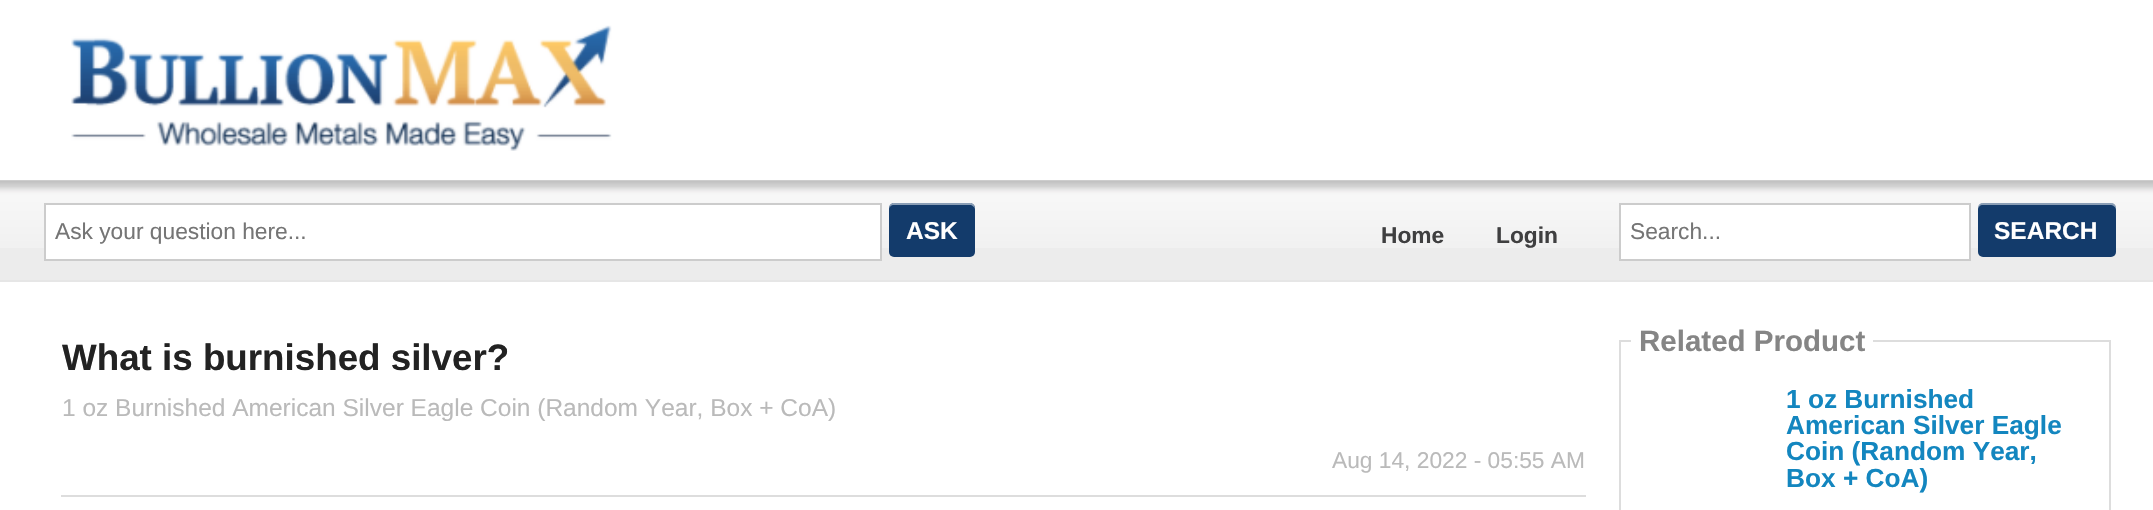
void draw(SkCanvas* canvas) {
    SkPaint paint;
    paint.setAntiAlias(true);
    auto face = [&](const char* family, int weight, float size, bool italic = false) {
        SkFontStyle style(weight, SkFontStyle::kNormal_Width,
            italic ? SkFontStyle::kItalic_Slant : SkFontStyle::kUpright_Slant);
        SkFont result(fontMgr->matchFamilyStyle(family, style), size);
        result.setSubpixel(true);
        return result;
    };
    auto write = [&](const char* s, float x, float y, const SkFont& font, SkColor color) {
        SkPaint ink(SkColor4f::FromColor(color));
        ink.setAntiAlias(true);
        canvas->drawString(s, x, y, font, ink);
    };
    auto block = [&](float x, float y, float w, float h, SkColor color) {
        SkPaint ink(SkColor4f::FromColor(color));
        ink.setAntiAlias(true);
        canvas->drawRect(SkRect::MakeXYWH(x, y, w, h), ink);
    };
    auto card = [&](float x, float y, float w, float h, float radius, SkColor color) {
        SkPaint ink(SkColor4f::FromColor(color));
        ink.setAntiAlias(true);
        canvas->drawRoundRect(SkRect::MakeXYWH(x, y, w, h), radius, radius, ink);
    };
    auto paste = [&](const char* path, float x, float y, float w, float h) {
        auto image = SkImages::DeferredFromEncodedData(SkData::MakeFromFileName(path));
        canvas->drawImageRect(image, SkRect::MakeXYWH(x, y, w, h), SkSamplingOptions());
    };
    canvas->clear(SK_ColorWHITE);
    paste("pic1.png", 71, 25, 541, 126);
    block(0, 180, 2153, 100, SkColorSetRGB(236, 236, 236));
    paste("pic2.png", 0, 180, 2153, 68);
    block(0, 280, 2153, 2, SkColorSetRGB(230, 230, 230));
    paint.setColor(SK_ColorWHITE);
    canvas->drawRect(SkRect::MakeXYWH(45, 204, 836, 56), paint);
    paint.setStyle(SkPaint::kStroke_Style);
    paint.setStrokeWidth(2);
    paint.setColor(SkColorSetRGB(204, 204, 204));
    canvas->drawRect(SkRect::MakeXYWH(45, 204, 836, 56), paint);
    auto kFont1 = face("Liberation Sans", 400, 22.75f);
    write("Ask your question here...", 55, 239, kFont1, SkColorSetRGB(117, 117, 117));
    card(889, 203, 86, 54, 5, SkColorSetRGB(19, 59, 107));
    paint.setStyle(SkPaint::kFill_Style);
    paint.setColor(SkColorSetARGB(128, 255, 255, 255));
    canvas->drawPath(SkPathBuilder().moveTo(894, 205).lineTo(970, 205).cubicTo(972, 205, 975, 207, 975, 210).cubicTo(975, 200, 966, 203, 957, 203).lineTo(907, 203).cubicTo(898, 203, 889, 200, 889, 210).cubicTo(889, 207, 891, 205, 894, 205).close().detach(), paint);
    auto kFont2 = face("Liberation Sans", 700, 24.5f);
    write("ASK", 906, 239, kFont2, SK_ColorWHITE);
    auto kFont3 = face("Liberation Sans", 700, 22.75f);
    write("Home", 1381, 243, kFont3, SkColorSetRGB(63, 63, 64));
    write("Login", 1496, 243, kFont3, SkColorSetRGB(63, 63, 64));
    paint.setColor(SK_ColorWHITE);
    canvas->drawRect(SkRect::MakeXYWH(1620, 204, 350, 56), paint);
    paint.setStyle(SkPaint::kStroke_Style);
    paint.setColor(SkColorSetRGB(204, 204, 204));
    canvas->drawRect(SkRect::MakeXYWH(1620, 204, 350, 56), paint);
    write("Search...", 1630, 239, kFont1, SkColorSetRGB(117, 117, 117));
    card(1978, 203, 138, 54, 5, SkColorSetRGB(19, 59, 107));
    paint.setStyle(SkPaint::kFill_Style);
    paint.setColor(SkColorSetARGB(128, 255, 255, 255));
    canvas->drawPath(SkPathBuilder().moveTo(1983, 205).lineTo(2110, 205).cubicTo(2113, 205, 2116, 207, 2116, 210).lineTo(2116, 208).cubicTo(2116, 205, 2114, 203, 2111, 203).lineTo(1983, 203).cubicTo(1980, 203, 1978, 205, 1978, 208).lineTo(1978, 210).cubicTo(1978, 207, 1980, 205, 1983, 205).close().detach(), paint);
    write("SEARCH", 1994, 239, kFont2, SK_ColorWHITE);
    auto kFont4 = face("Liberation Sans", 700, 36.75f);
    write("What is burnished silver?", 62, 370, kFont4, SkColorSetRGB(34, 34, 34));
    auto kFont5 = face("Liberation Sans", 400, 24.5f);
    write("1 oz Burnished American Silver Eagle Coin (Random Year, Box + CoA)", 62, 416, kFont5, SkColorSetRGB(186, 186, 186));
    write("Aug 14, 2022 - 05:55 AM", 1332, 468, kFont1, SkColorSetRGB(186, 186, 186));
    block(61, 495, 1525, 2, SkColorSetRGB(221, 221, 221));
    paint.setStyle(SkPaint::kStroke_Style);
    paint.setColor(SkColorSetRGB(221, 221, 221));
    canvas->drawRect(SkRect::MakeXYWH(1620, 341, 490, 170), paint);
    block(1631, 340, 242, 2, SK_ColorWHITE);
    auto kFont6 = face("Liberation Sans", 700, 29.5f);
    write("Related Product", 1639, 351, kFont6, SkColorSetRGB(133, 133, 133));
    auto kFont7 = face("Liberation Sans", 700, 26.25f);
    write("1 oz Burnished", 1786, 408, kFont7, SkColorSetRGB(19, 134, 191));
    write("American Silver Eagle", 1786, 434, kFont7, SkColorSetRGB(19, 134, 191));
    write("Coin (Random Year,", 1786, 460, kFont7, SkColorSetRGB(19, 134, 191));
    write("Box + CoA)", 1786, 487, kFont7, SkColorSetRGB(19, 134, 191));
}
